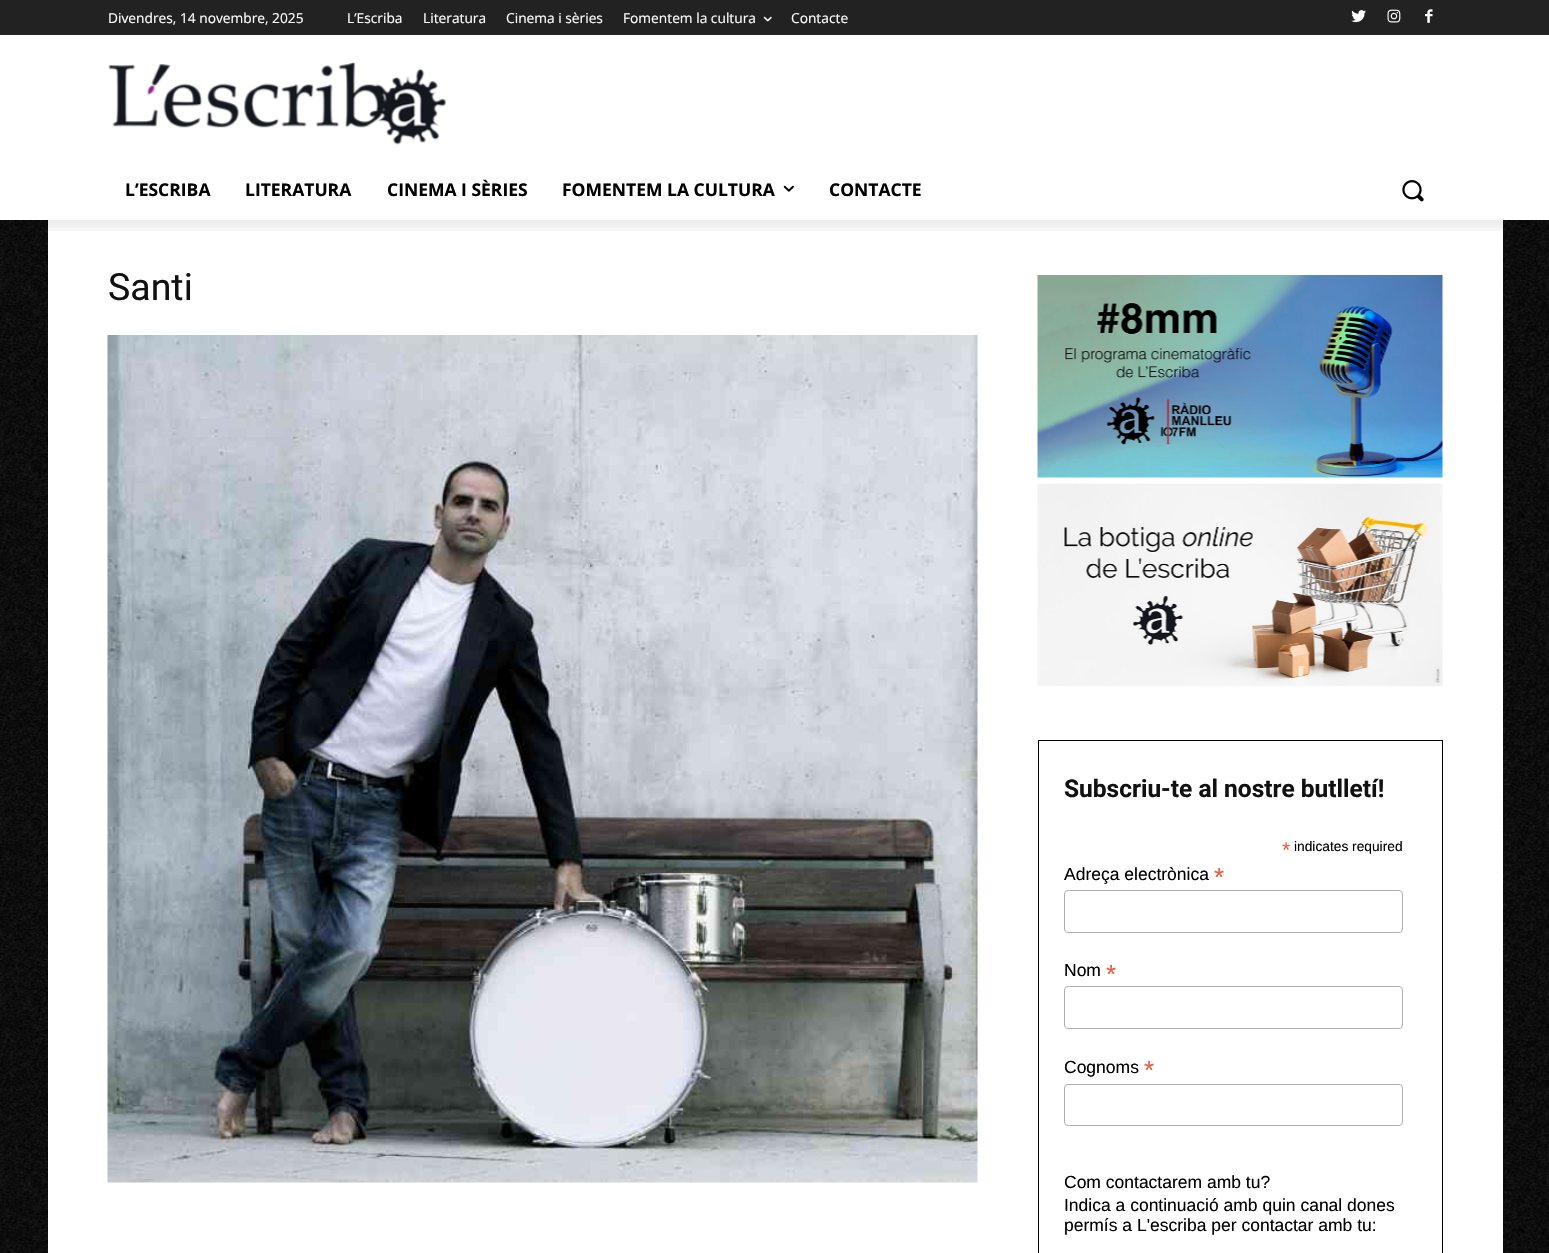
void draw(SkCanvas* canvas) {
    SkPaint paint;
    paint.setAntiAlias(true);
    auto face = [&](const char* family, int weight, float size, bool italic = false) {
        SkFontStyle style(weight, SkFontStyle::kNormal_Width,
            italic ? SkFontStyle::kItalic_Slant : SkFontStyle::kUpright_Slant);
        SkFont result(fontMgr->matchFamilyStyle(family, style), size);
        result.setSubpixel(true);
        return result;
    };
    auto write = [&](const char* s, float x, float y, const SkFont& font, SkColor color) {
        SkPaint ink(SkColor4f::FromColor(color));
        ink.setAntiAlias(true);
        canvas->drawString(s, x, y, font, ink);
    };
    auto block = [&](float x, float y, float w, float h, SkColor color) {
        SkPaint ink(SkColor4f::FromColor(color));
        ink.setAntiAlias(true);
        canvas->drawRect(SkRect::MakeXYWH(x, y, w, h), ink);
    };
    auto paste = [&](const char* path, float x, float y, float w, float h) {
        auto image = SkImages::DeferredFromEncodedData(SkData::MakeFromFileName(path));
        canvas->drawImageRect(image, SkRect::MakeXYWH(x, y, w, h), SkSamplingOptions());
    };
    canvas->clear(SK_ColorWHITE);
    paste("pic1.png", 0, 220, 1549, 1033);
    block(0, 0, 1549, 35, SkColorSetRGB(34, 34, 34));
    paste("pic3.png", 1351, 10, 15, 13);
    paste("pic4.png", 1387, 9, 14, 14);
    paste("pic5.png", 1425, 9, 8, 14);
    paste("pic6.png", 108, 61, 338, 84);
    block(48, 220, 1455, 1033, SK_ColorWHITE);
    canvas->save();
    canvas->clipRect(SkRect::MakeXYWH(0, 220, 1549, 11));
    paint.setColor(SkColorSetARGB(20, 0, 0, 0));
    paint.setMaskFilter(SkMaskFilter::MakeBlur(kNormal_SkBlurStyle, 5));
    canvas->drawRect(SkRect::MakeXYWH(0, 8, 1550, 220), paint);
    paint.setMaskFilter(nullptr);
    canvas->restore();
    auto kFont1 = face("Open Sans", 400, 13.75f);
    write("Divendres, 14 novembre, 2025", 108, 23, kFont1, SK_ColorWHITE);
    write("L’Escriba", 347, 23, kFont1, SK_ColorWHITE);
    write("Literatura", 423, 23, kFont1, SK_ColorWHITE);
    write("Cinema i sèries", 506, 23, kFont1, SK_ColorWHITE);
    write("Fomentem la cultura", 623, 23, kFont1, SK_ColorWHITE);
    paste("pic2.png", 763, 16, 9, 6);
    write("Contacte", 791, 23, kFont1, SK_ColorWHITE);
    auto kFont2 = face("Open Sans", 700, 17.5f);
    write("L’ESCRIBA", 125, 196, kFont2, SK_ColorBLACK);
    write("LITERATURA", 245, 196, kFont2, SK_ColorBLACK);
    write("CINEMA I SÈRIES", 387, 196, kFont2, SK_ColorBLACK);
    write("FOMENTEM LA CULTURA", 562, 196, kFont2, SK_ColorBLACK);
    paste("pic7.png", 783, 185, 11, 7);
    write("CONTACTE", 829, 196, kFont2, SK_ColorBLACK);
    paste("pic8.png", 1402, 180, 22, 22);
    auto kFont3 = face("Roboto", 400, 37.5f);
    write("Santi", 108, 300, kFont3, SkColorSetRGB(17, 17, 17));
    paste("pic9.png", 107, 335, 871, 848);
    paste("pic10.png", 1037, 275, 406, 203);
    paste("pic11.png", 1037, 483, 406, 204);
    paint.setStyle(SkPaint::kStroke_Style);
    paint.setStrokeWidth(1);
    paint.setColor(SK_ColorBLACK);
    canvas->drawRect(SkRect::MakeXYWH(1038.5f, 740.5f, 404, 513), paint);
    auto kFont4 = face("Roboto", 700, 24.5f);
    write("Subscriu-te al nostre butlletí!", 1064, 797, kFont4, SkColorSetRGB(17, 17, 17));
    auto kFont5 = face("Liberation Sans", 400, 21);
    write("*", 1282, 857, kFont5, SkColorSetRGB(232, 92, 65));
    auto kFont6 = face("Liberation Sans", 400, 13.75f);
    write("indicates required", 1294, 851, kFont6, SK_ColorBLACK);
    auto kFont7 = face("Liberation Sans", 400, 17.5f);
    write("Adreça electrònica", 1064, 880, kFont7, SK_ColorBLACK);
    auto kFont8 = face("Liberation Sans", 400, 26);
    write("*", 1214, 886, kFont8, SkColorSetRGB(232, 92, 65));
    paint.setColor(SkColorSetRGB(171, 176, 178));
    canvas->drawRoundRect(SkRect::MakeXYWH(1064.5f, 890.5f, 338, 42), 3.5f, 3.5f, paint);
    write("Nom", 1064, 976, kFont7, SK_ColorBLACK);
    write("*", 1106, 983, kFont8, SkColorSetRGB(232, 92, 65));
    canvas->drawRoundRect(SkRect::MakeXYWH(1064.5f, 986.5f, 338, 42), 3.5f, 3.5f, paint);
    write("Cognoms", 1064, 1073, kFont7, SK_ColorBLACK);
    write("*", 1144, 1079, kFont8, SkColorSetRGB(232, 92, 65));
    canvas->drawRoundRect(SkRect::MakeXYWH(1064.5f, 1084.5f, 338, 41), 3.5f, 3.5f, paint);
    write("Com contactarem amb tu?", 1064, 1188, kFont7, SK_ColorBLACK);
    write("Indica a continuació amb quin canal dones", 1064, 1211, kFont7, SK_ColorBLACK);
    write("permís a L'escriba per contactar amb tu:", 1064, 1231, kFont7, SK_ColorBLACK);
}
